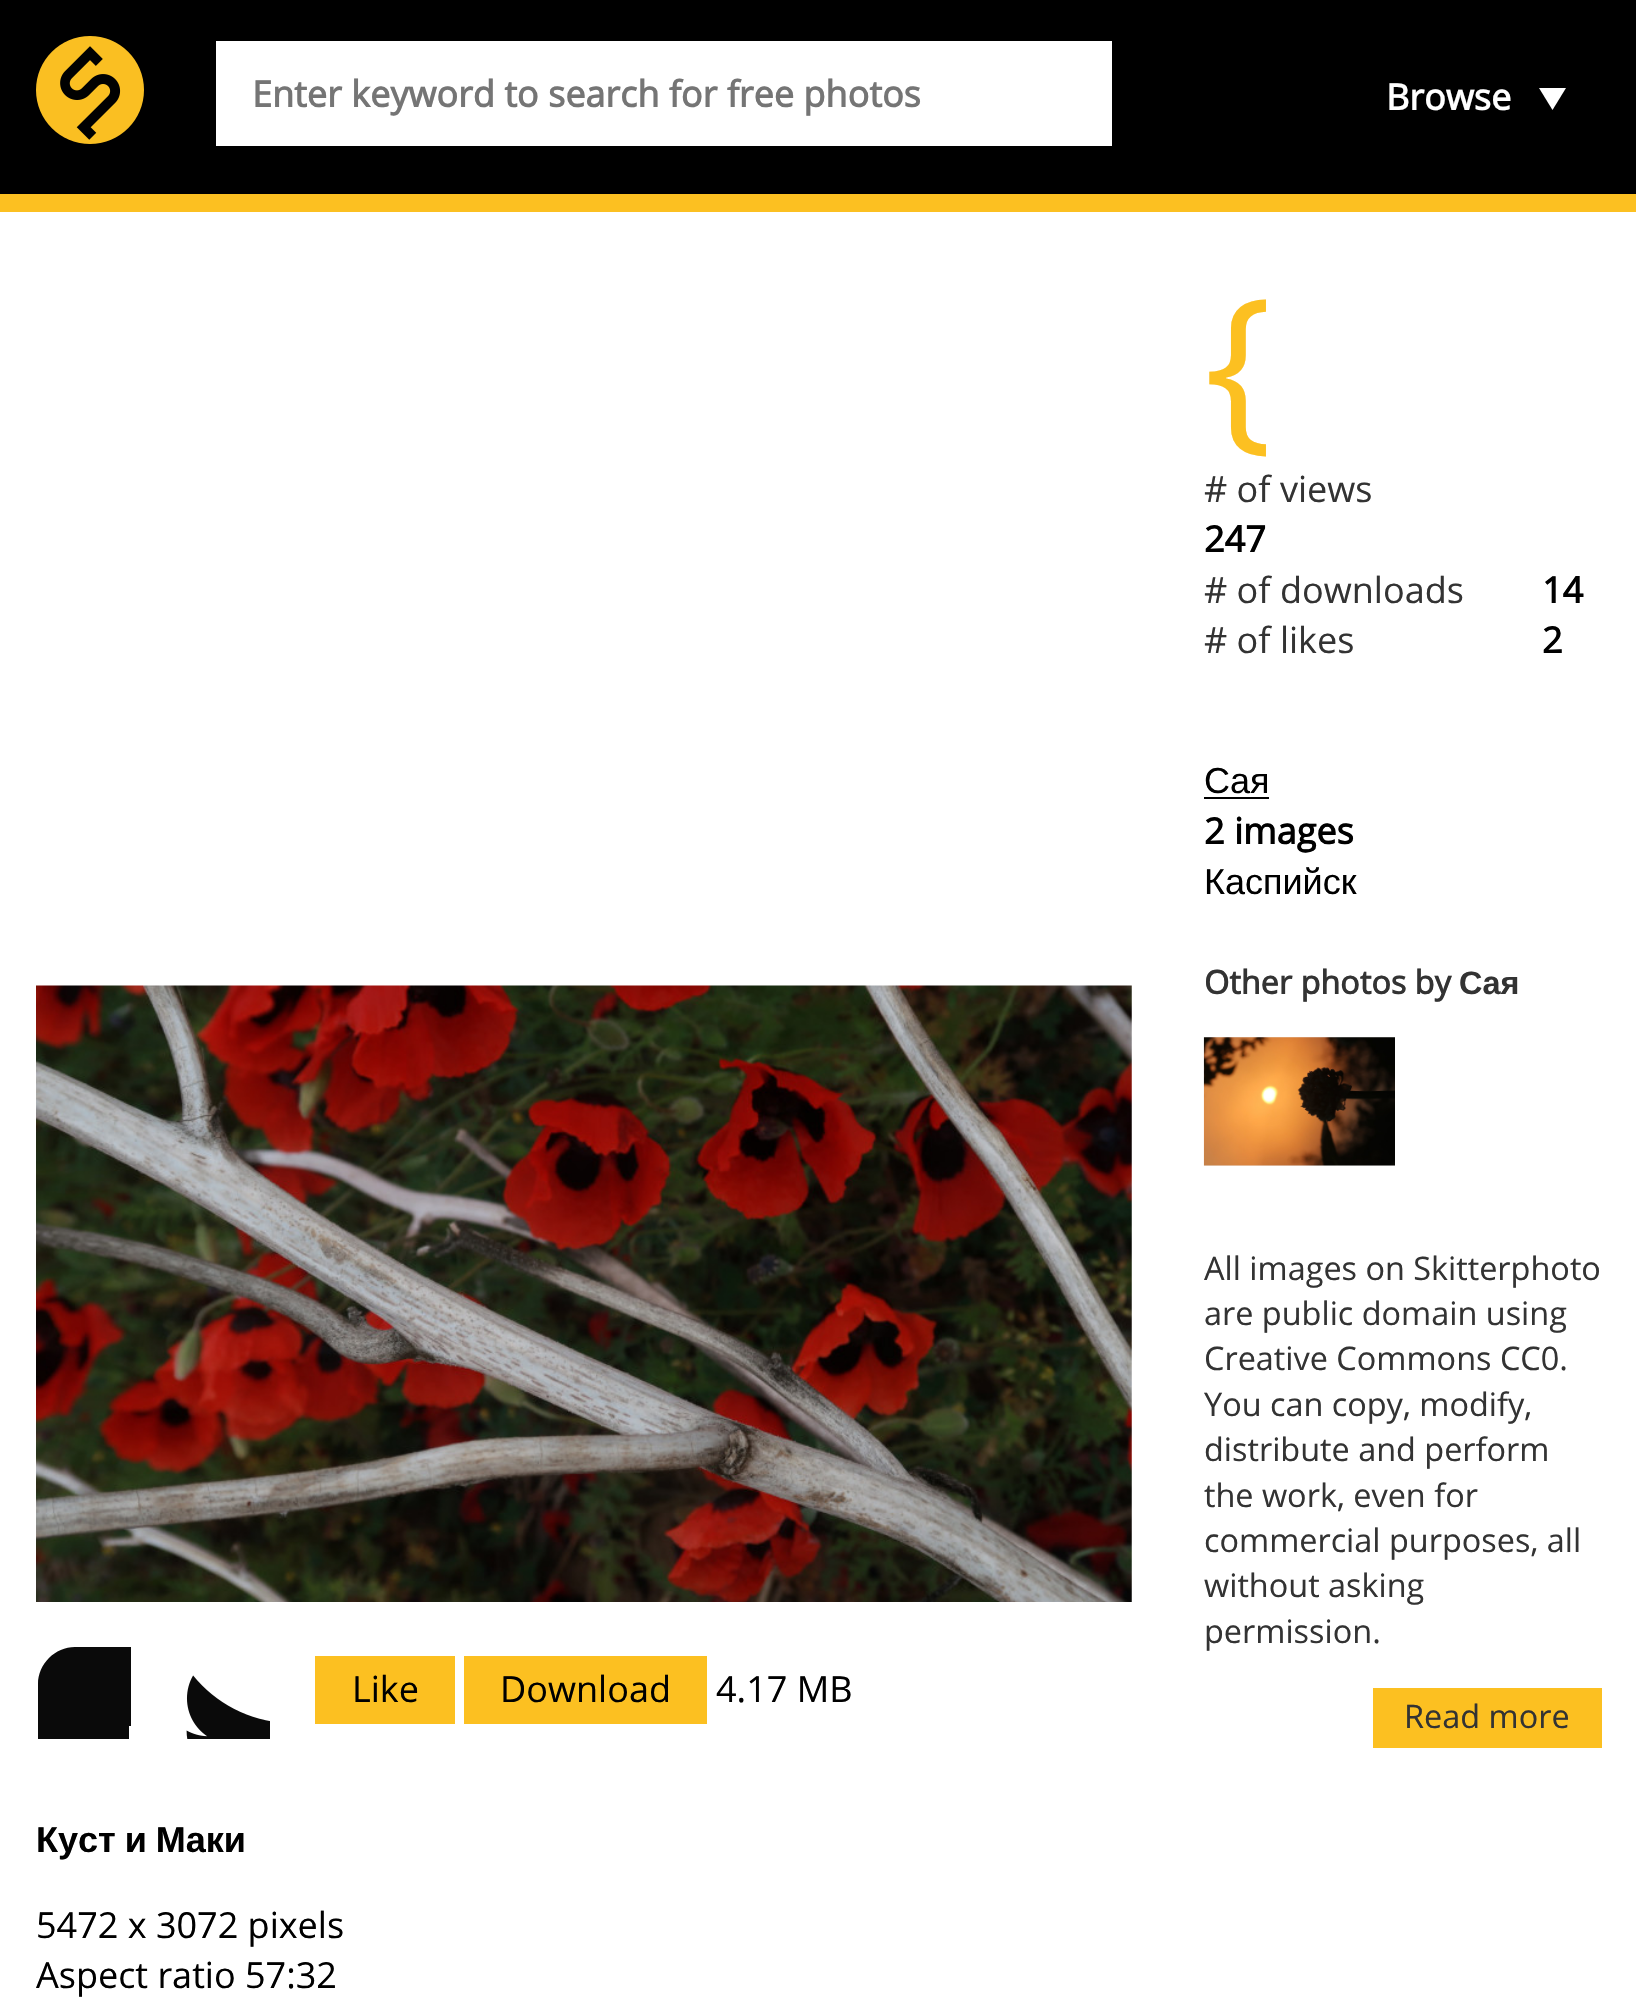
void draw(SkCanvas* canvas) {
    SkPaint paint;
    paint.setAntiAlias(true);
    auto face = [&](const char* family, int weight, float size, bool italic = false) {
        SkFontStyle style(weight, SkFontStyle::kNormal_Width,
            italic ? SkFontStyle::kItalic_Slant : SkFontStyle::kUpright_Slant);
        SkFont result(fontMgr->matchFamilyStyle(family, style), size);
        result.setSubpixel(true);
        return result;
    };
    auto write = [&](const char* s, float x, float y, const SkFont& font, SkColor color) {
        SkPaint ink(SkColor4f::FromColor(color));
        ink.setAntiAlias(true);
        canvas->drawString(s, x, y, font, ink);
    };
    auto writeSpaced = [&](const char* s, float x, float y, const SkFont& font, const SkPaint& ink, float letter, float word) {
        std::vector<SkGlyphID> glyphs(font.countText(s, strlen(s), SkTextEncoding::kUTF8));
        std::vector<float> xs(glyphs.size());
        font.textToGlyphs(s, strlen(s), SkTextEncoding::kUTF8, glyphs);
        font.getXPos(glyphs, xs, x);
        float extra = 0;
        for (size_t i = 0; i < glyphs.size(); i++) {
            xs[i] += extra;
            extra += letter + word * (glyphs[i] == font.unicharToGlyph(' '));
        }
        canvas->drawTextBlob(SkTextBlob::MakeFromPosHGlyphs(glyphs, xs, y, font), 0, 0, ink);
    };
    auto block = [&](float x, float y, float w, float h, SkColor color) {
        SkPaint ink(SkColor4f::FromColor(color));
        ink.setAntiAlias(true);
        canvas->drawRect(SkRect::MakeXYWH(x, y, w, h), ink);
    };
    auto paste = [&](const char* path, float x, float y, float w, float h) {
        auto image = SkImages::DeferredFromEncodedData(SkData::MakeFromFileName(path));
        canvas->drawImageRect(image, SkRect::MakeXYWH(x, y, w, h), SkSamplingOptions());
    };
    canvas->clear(SK_ColorWHITE);
    block(0, 0, 1636, 194, SK_ColorBLACK);
    block(0, 194, 1636, 18, SkColorSetRGB(252, 192, 33));
    paste("pic1.png", 36, 36, 108, 108);
    block(216, 41, 896, 105, SK_ColorWHITE);
    auto kFont1 = face("Open Sans", 700, 36);
    write("Enter keyword to search for free photos", 252, 107, kFont1, SkColorSetRGB(117, 117, 117));
    write("Browse", 1386, 110, kFont1, SK_ColorWHITE);
    paint.setColor(SK_ColorWHITE);
    canvas->drawPath(SkPathBuilder().moveTo(1539, 88).lineTo(1566, 88).lineTo(1552.5f, 110).close().detach(), paint);
    auto kFont2 = face("Open Sans", 400, 180);
    write("{", 1204, 428, kFont2, SkColorSetRGB(252, 192, 33));
    auto kFont3 = face("Open Sans", 400, 36);
    write("# of views", 1204, 502, kFont3, SkColorSetRGB(51, 51, 51));
    write("247", 1204, 552, kFont1, SK_ColorBLACK);
    write("# of downloads", 1204, 603, kFont3, SkColorSetRGB(51, 51, 51));
    write("14", 1542, 603, kFont1, SK_ColorBLACK);
    write("# of likes", 1204, 653, kFont3, SkColorSetRGB(51, 51, 51));
    write("2", 1542, 653, kFont1, SK_ColorBLACK);
    auto kFont4 = face("Liberation Sans", 400, 36);
    write("Сая", 1204, 793, kFont4, SK_ColorBLACK);
    block(1204, 797, 65, 2, SK_ColorBLACK);
    write("2 images", 1204, 844, kFont1, SK_ColorBLACK);
    write("Каспийск", 1204, 894, kFont4, SK_ColorBLACK);
    auto kFont5 = face("Open Sans", 700, 32.4f);
    write("Other photos by", 1204, 994, kFont5, SkColorSetRGB(51, 51, 51));
    auto kFont6 = face("Liberation Sans", 700, 32.4f);
    write("Сая", 1459, 994, kFont6, SkColorSetRGB(51, 51, 51));
    block(1204, 1037, 191, 129, SkColorSetRGB(238, 238, 238));
    paste("pic2.png", 1203, 1037, 192, 129);
    auto kFont7 = face("Open Sans", 400, 32.4f);
    write("All images on Skitterphoto", 1204, 1280, kFont7, SkColorSetRGB(51, 51, 51));
    write("are public domain using", 1204, 1325, kFont7, SkColorSetRGB(51, 51, 51));
    write("Creative Commons CC0.", 1204, 1370, kFont7, SkColorSetRGB(51, 51, 51));
    write("You can copy, modify,", 1204, 1416, kFont7, SkColorSetRGB(51, 51, 51));
    write("distribute and perform", 1204, 1461, kFont7, SkColorSetRGB(51, 51, 51));
    write("the work, even for", 1204, 1507, kFont7, SkColorSetRGB(51, 51, 51));
    write("commercial purposes, all", 1204, 1552, kFont7, SkColorSetRGB(51, 51, 51));
    write("without asking", 1204, 1597, kFont7, SkColorSetRGB(51, 51, 51));
    write("permission.", 1204, 1643, kFont7, SkColorSetRGB(51, 51, 51));
    block(1373, 1688, 229, 60, SkColorSetRGB(252, 192, 33));
    write("Read more", 1404, 1728, kFont7, SkColorSetRGB(51, 51, 51));
    paste("pic3.png", 36, 985, 1096, 617);
    canvas->save();
    canvas->clipRect(SkRect::MakeXYWH(36, 1645, 95, 94));
    paint.setColor(SkColorSetRGB(10, 10, 10));
    canvas->drawPath(SkPathBuilder().moveTo(222, 1647).lineTo(75, 1647).cubicTo(55, 1647, 38, 1664, 38, 1684).lineTo(38, 1831).cubicTo(38, 1851, 55, 1868, 75, 1868).lineTo(222, 1868).cubicTo(242, 1868, 259, 1851, 259, 1831).lineTo(259, 1684).cubicTo(259, 1664, 242, 1647, 222, 1647).close().moveTo(226, 1757).lineTo(190, 1757).lineTo(190, 1854).lineTo(148, 1854).lineTo(148, 1757).lineTo(129, 1757).lineTo(129, 1726).lineTo(148, 1726).lineTo(148, 1705).cubicTo(148, 1677, 161, 1661, 193, 1661).lineTo(231, 1661).lineTo(231, 1695).lineTo(200, 1695).cubicTo(191, 1695, 190, 1700, 190, 1709).lineTo(190, 1726).lineTo(231, 1726).close().detach(), paint);
    canvas->restore();
    paste("pic4.png", 186, 1675, 84, 64);
    block(315, 1656, 140, 68, SkColorSetRGB(252, 192, 33));
    write("Like", 352, 1702, kFont3, SK_ColorBLACK);
    block(464, 1656, 243, 68, SkColorSetRGB(252, 192, 33));
    write("Download", 500, 1702, kFont3, SK_ColorBLACK);
    write("4.17 MB", 716, 1702, kFont3, SK_ColorBLACK);
    auto kFont8 = face("Liberation Sans", 700, 36);
    paint.setColor(SK_ColorBLACK);
    writeSpaced("Куст и Маки", 36, 1852, kFont8, paint, 0, -1);
    write("5472 x 3072 pixels", 36, 1938, kFont3, SK_ColorBLACK);
    write("Aspect ratio 57:32", 36, 1988, kFont3, SK_ColorBLACK);
}
